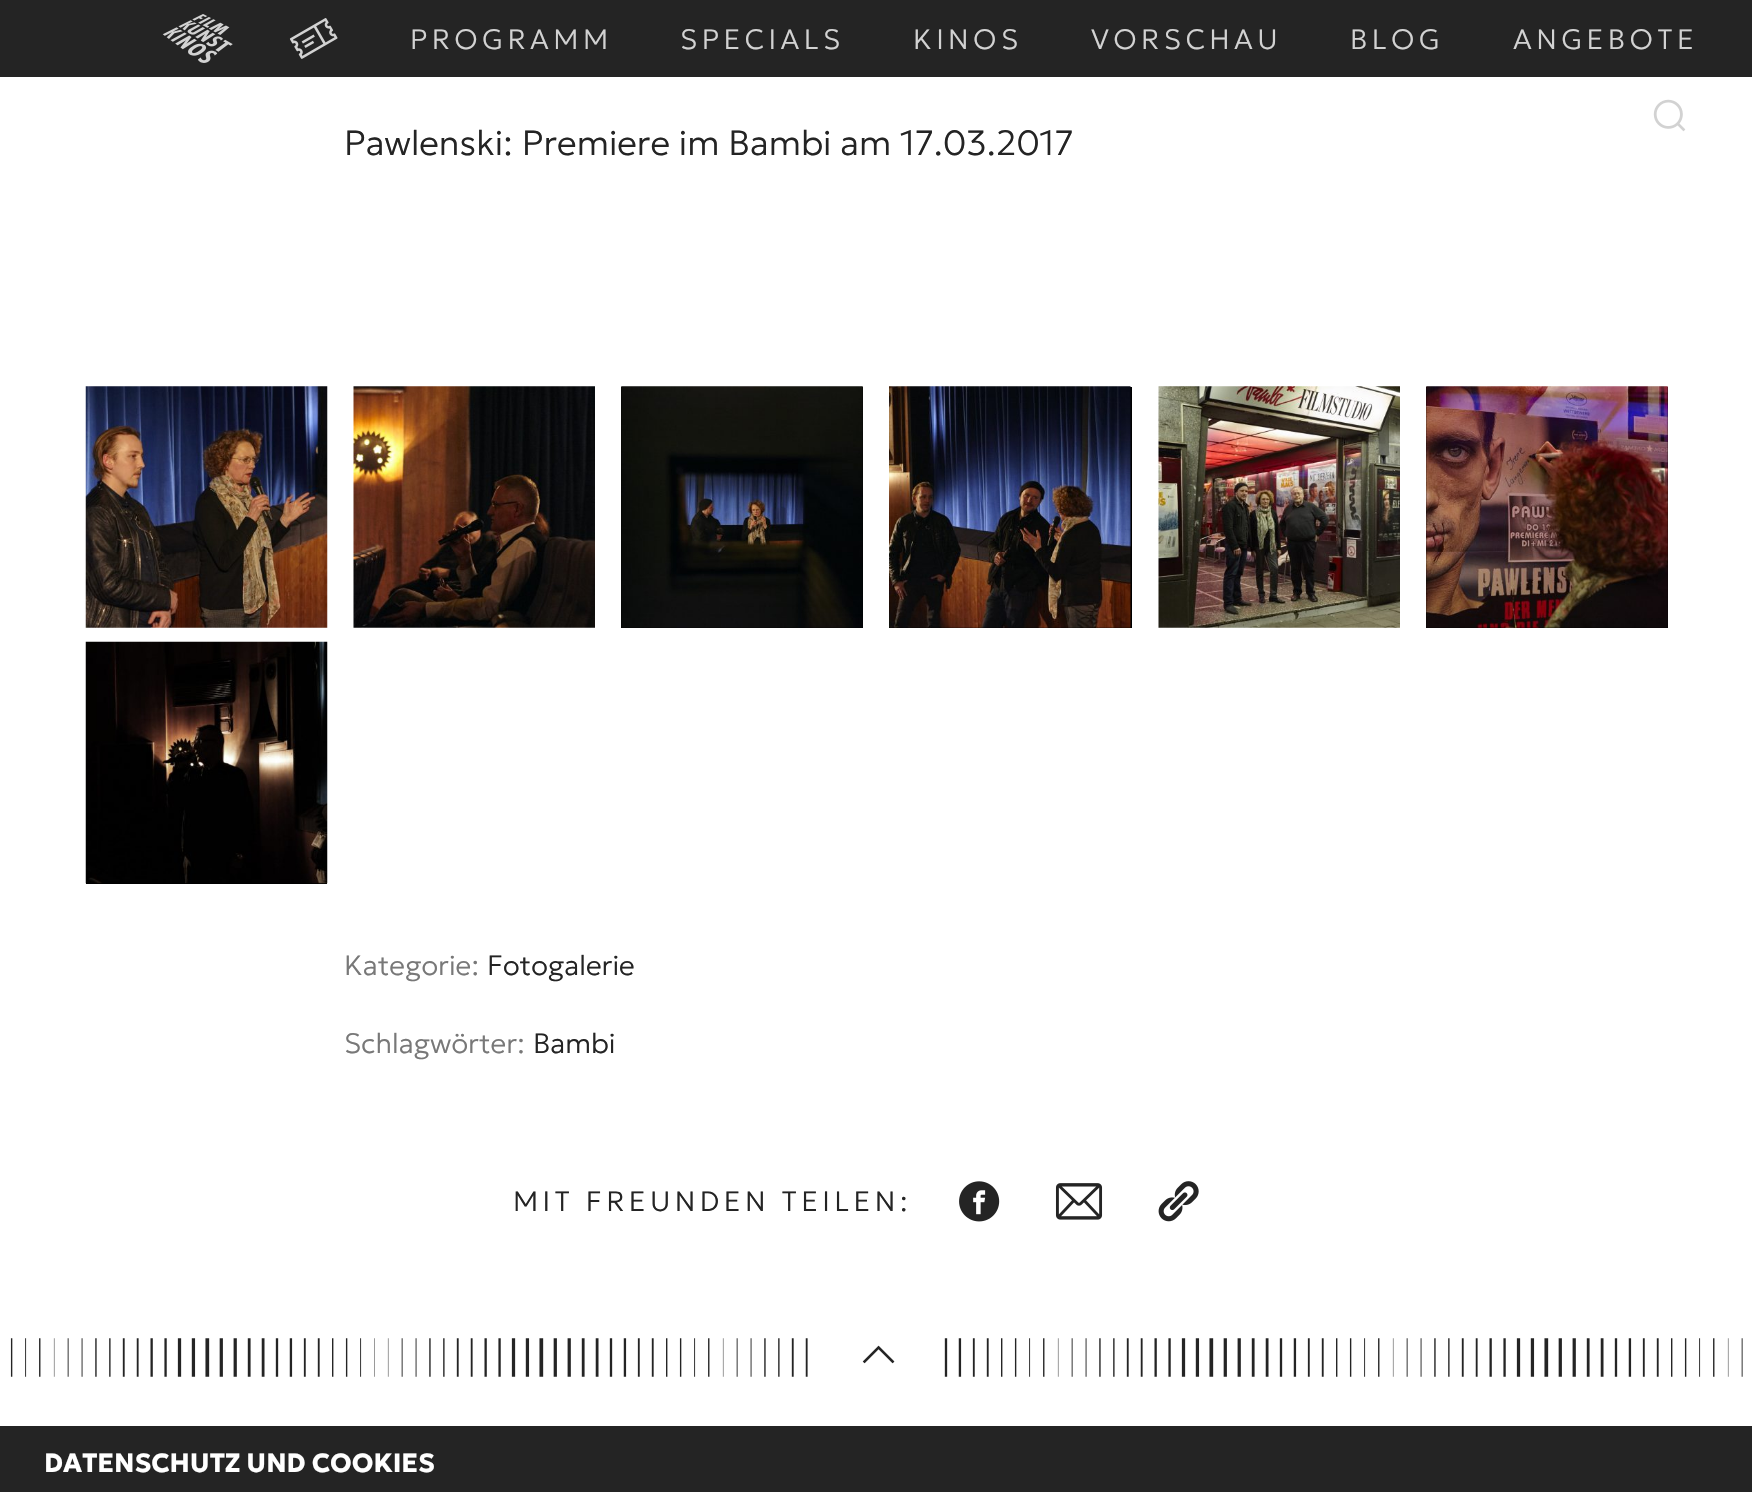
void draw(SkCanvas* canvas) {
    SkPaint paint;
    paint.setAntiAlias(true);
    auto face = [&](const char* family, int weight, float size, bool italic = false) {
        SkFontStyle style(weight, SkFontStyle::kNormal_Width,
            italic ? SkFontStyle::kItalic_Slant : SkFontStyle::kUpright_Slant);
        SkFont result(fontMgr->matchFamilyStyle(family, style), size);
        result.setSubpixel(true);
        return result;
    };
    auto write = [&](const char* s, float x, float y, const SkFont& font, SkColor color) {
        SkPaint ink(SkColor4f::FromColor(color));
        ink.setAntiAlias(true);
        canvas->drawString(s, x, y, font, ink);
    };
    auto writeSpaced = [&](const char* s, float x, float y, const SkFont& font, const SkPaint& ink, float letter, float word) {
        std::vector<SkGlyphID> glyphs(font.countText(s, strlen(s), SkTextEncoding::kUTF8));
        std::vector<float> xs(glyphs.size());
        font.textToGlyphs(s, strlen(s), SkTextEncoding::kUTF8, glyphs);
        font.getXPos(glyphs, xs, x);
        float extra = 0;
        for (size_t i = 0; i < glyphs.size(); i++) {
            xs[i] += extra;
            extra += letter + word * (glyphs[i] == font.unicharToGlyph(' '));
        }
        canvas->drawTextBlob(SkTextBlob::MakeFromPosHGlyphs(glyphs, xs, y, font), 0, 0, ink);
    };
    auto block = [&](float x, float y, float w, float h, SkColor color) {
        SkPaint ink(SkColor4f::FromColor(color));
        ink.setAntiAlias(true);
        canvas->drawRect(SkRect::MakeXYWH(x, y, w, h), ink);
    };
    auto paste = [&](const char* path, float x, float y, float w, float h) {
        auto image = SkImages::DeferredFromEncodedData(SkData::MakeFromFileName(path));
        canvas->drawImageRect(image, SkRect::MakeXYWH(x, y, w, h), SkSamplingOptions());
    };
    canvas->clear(SK_ColorWHITE);
    block(0, 0, 1752, 77, SkColorSetARGB(219, 0, 0, 0));
    paste("pic1.png", 162, 14, 71, 49);
    paste("pic2.png", 289, 18, 49, 41);
    auto kFont1 = face("Geologica", 100, 28);
    paint.setColor(SkColorSetRGB(210, 210, 210));
    writeSpaced("PROGRAMM", 410, 49, kFont1, paint, 4.4f, 0);
    writeSpaced("SPECIALS", 680, 49, kFont1, paint, 4.4f, 0);
    writeSpaced("KINOS", 913, 49, kFont1, paint, 4.4f, 0);
    writeSpaced("VORSCHAU", 1091, 49, kFont1, paint, 4.4f, 0);
    writeSpaced("BLOG", 1350, 49, kFont1, paint, 4.4f, 0);
    writeSpaced("ANGEBOTE", 1513, 49, kFont1, paint, 4.4f, 0);
    paste("pic3.png", 1653, 99, 33, 33);
    auto kFont2 = face("Geologica", 100, 35);
    write("Pawlenski: Premiere im Bambi am 17.03.2017", 344, 155, kFont2, SkColorSetRGB(36, 36, 36));
    paste("pic4.png", 85, 386, 243, 242);
    paste("pic5.png", 353, 386, 242, 242);
    block(621, 387, 242, 241, SK_ColorBLACK);
    paste("pic6.png", 621, 386, 242, 242);
    block(889, 387, 243, 241, SK_ColorBLACK);
    paste("pic7.png", 889, 386, 242, 242);
    paste("pic8.png", 1158, 386, 242, 242);
    block(1426, 387, 242, 241, SK_ColorBLACK);
    paste("pic9.png", 1426, 386, 242, 242);
    block(86, 883, 241, 1, SK_ColorBLACK);
    paste("pic10.png", 85, 641, 243, 243);
    write("Kategorie:", 344, 975, kFont1, SkColorSetRGB(120, 120, 120));
    write("Fotogalerie", 487, 975, kFont1, SkColorSetRGB(36, 36, 36));
    write("Schlagwörter:", 344, 1053, kFont1, SkColorSetRGB(120, 120, 120));
    write("Bambi", 533, 1053, kFont1, SkColorSetRGB(36, 36, 36));
    paint.setColor(SkColorSetRGB(36, 36, 36));
    writeSpaced("MIT FREUNDEN TEILEN:", 513, 1211, kFont1, paint, 4.4f, 0);
    paste("pic11.png", 959, 1181, 41, 41);
    paste("pic12.png", 1055, 1183, 48, 37);
    paste("pic13.png", 1158, 1181, 41, 41);
    paste("pic14.png", 10, 1338, 1733, 39);
    block(819, 1338, 115, 39, SK_ColorWHITE);
    paste("pic15.png", 862, 1345, 33, 19);
    block(0, 1426, 1752, 66, SkColorSetRGB(36, 36, 36));
    auto kFont3 = face("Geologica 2", 100, 26.25f);
    write("DATENSCHUTZ UND COOKIES", 44, 1472, kFont3, SK_ColorWHITE);
}
